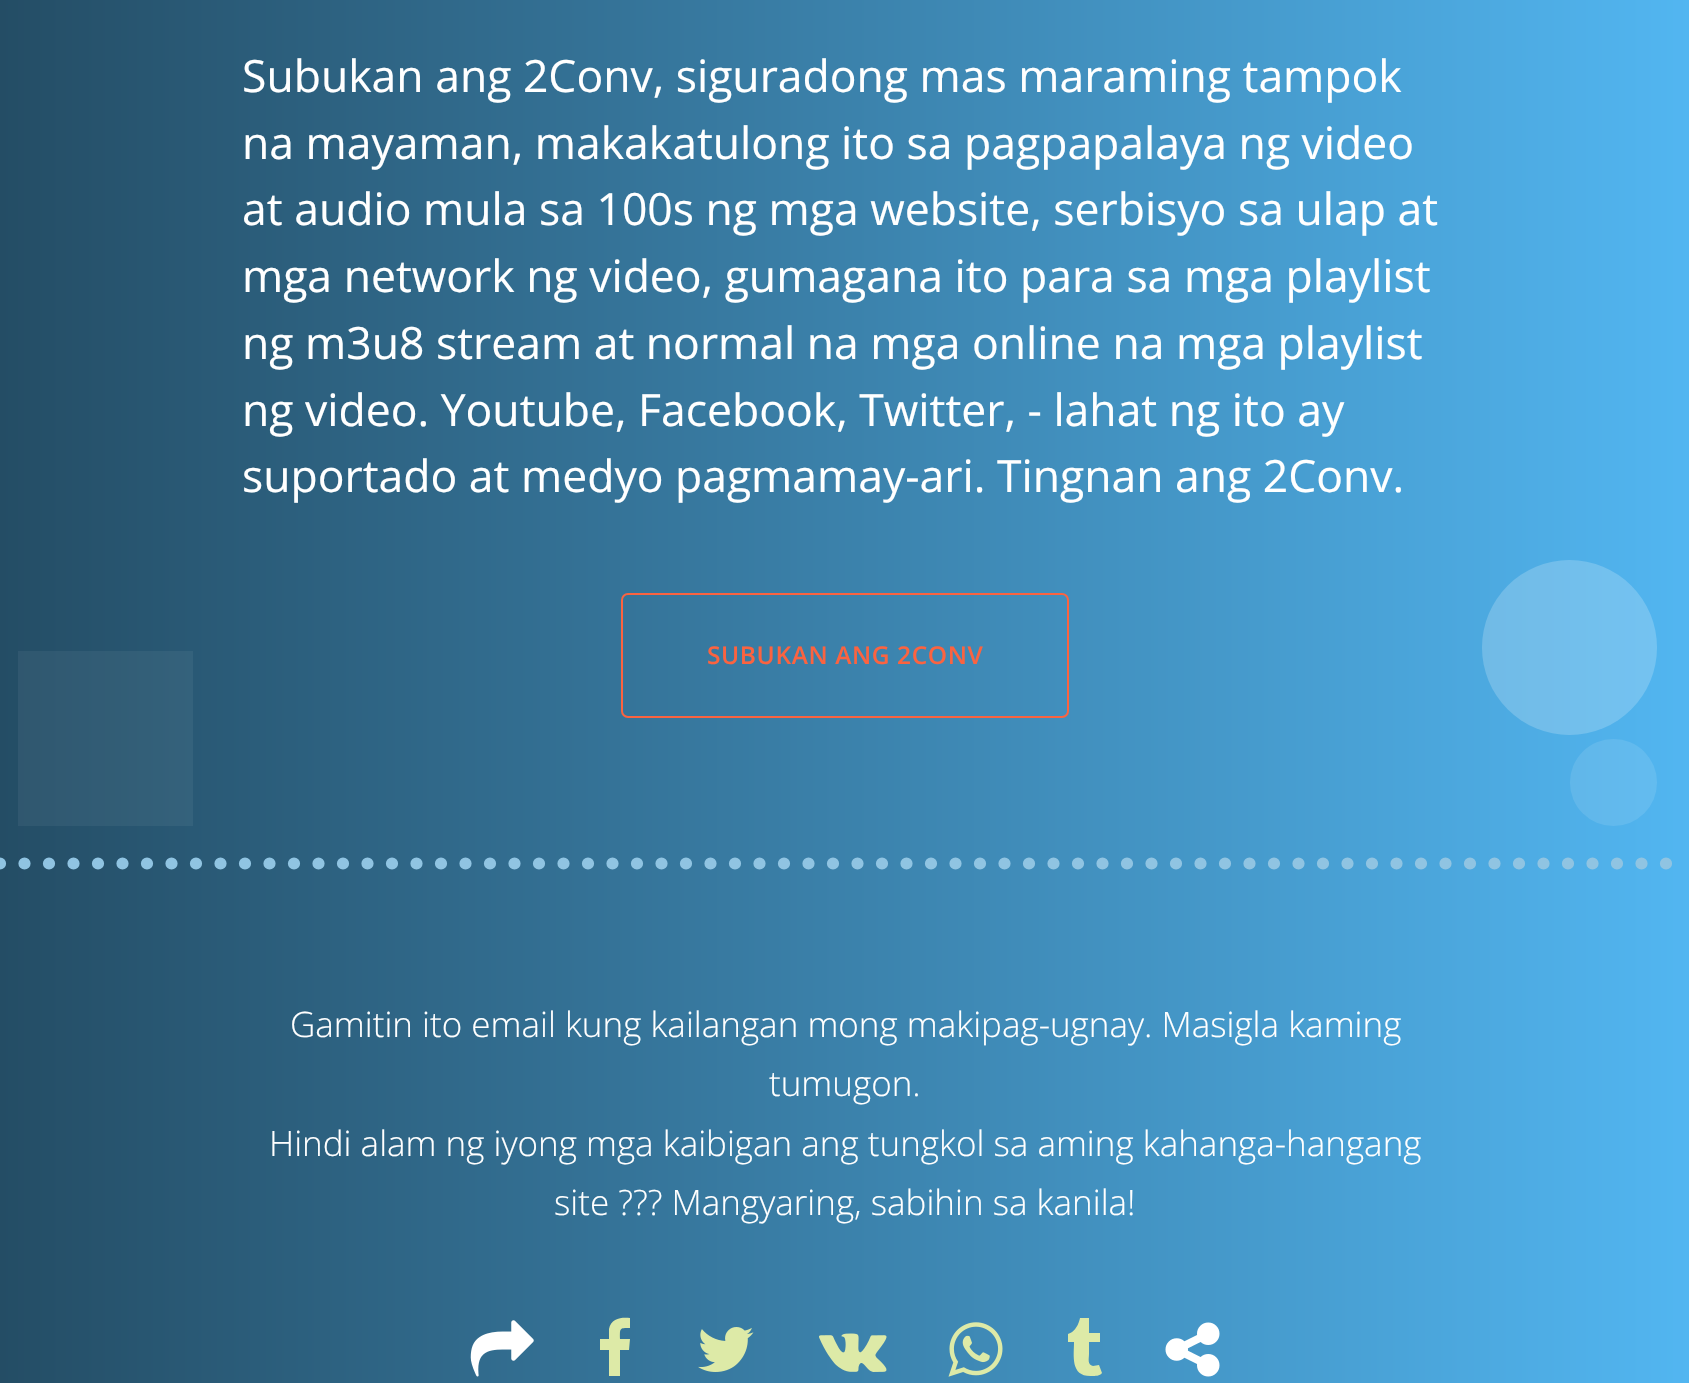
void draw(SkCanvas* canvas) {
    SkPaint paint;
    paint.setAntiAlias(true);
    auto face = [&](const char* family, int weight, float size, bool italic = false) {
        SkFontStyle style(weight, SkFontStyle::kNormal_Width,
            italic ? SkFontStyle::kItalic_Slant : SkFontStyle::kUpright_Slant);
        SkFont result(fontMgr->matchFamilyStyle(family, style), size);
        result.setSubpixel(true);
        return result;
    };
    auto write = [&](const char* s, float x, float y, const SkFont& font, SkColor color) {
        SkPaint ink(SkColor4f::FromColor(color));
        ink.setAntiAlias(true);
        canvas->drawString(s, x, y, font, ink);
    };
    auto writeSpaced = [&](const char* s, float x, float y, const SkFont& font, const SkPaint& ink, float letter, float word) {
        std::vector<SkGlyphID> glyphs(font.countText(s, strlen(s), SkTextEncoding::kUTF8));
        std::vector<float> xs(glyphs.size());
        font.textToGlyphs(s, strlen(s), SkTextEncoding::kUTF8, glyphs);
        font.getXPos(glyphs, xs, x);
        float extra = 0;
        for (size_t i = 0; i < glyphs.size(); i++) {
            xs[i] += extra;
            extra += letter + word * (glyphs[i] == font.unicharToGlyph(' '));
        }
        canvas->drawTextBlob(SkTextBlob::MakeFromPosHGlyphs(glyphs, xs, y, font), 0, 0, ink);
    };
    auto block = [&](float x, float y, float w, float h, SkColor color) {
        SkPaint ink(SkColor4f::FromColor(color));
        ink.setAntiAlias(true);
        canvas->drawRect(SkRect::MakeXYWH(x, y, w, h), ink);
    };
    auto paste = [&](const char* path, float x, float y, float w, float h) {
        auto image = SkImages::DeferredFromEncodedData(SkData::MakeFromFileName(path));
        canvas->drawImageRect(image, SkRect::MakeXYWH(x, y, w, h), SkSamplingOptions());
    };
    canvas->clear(SK_ColorWHITE);
    {
        const SkColor colors[] = {SkColorSetRGB(82, 182, 241), SkColorSetRGB(36, 77, 101)};
        const float stops[] = {0, 1};
        const SkPoint ends[] = {{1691, -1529}, {0, -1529}};
        paint.setShader(SkGradientShader::MakeLinear(ends, colors, stops, 2, SkTileMode::kClamp));
        paint.setAlpha(255);
    }
    canvas->drawRect(SkRect::MakeXYWH(0, 0, 1689, 1383), paint);
    auto kFont1 = face("Open Sans", 400, 44.5f);
    write("Subukan ang 2Conv, siguradong mas maraming tampok", 242, 92, kFont1, SK_ColorWHITE);
    write("na mayaman, makakatulong ito sa pagpapalaya ng video", 242, 159, kFont1, SK_ColorWHITE);
    write("at audio mula sa 100s ng mga website, serbisyo sa ulap at", 242, 225, kFont1, SK_ColorWHITE);
    write("mga network ng video, gumagana ito para sa mga playlist", 242, 292, kFont1, SK_ColorWHITE);
    write("ng m3u8 stream at normal na mga online na mga playlist", 242, 359, kFont1, SK_ColorWHITE);
    write("ng video. Youtube, Facebook, Twitter, - lahat ng ito ay", 242, 426, kFont1, SK_ColorWHITE);
    write("suportado at medyo pagmamay-ari. Tingnan ang 2Conv.", 242, 492, kFont1, SK_ColorWHITE);
    paint.setStyle(SkPaint::kStroke_Style);
    paint.setStrokeWidth(2);
    paint.setShader(nullptr);
    paint.setColor(SkColorSetRGB(251, 99, 64));
    canvas->drawRoundRect(SkRect::MakeXYWH(622, 594, 446, 123), 6, 6, paint);
    auto kFont2 = face("Open Sans", 600, 24.5f);
    paint.setStyle(SkPaint::kFill_Style);
    writeSpaced("SUBUKAN ANG 2CONV", 707, 664, kFont2, paint, 0.6f, 0);
    block(18, 651, 175, 175, SkColorSetARGB(13, 255, 255, 255));
    paint.setColor(SkColorSetARGB(51, 255, 255, 255));
    canvas->drawCircle(1569.5f, 647.5f, 87.5f, paint);
    paint.setColor(SkColorSetARGB(26, 255, 255, 255));
    canvas->drawCircle(1613.5f, 782.5f, 43.5f, paint);
    paint.setStyle(SkPaint::kStroke_Style);
    paint.setStrokeWidth(12.2f);
    paint.setStrokeCap(SkPaint::kRound_Cap);
    paint.setColor(SkColorSetRGB(144, 196, 226));
    paint.setPathEffect(SkDashPathEffect::Make({{0, 24.5f}}, 0));
    canvas->drawPath(SkPathBuilder().moveTo(0, 863.5f).lineTo(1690.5f, 863.5f).detach(), paint);
    paint.setPathEffect(nullptr);
    auto kFont3 = face("Open Sans", 300, 35);
    write("Gamitin ito email kung kailangan mong makipag-ugnay. Masigla kaming", 290, 1037, kFont3, SK_ColorWHITE);
    write("tumugon.", 769, 1096, kFont3, SK_ColorWHITE);
    write("Hindi alam ng iyong mga kaibigan ang tungkol sa aming kahanga-hangang", 269, 1156, kFont3, SK_ColorWHITE);
    write("site ?\077? Mangyaring, sabihin sa kanila!", 554, 1215, kFont3, SK_ColorWHITE);
    paste("pic1.png", 470, 1320, 64, 57);
    paint.setStyle(SkPaint::kFill_Style);
    paint.setColor(SkColorSetRGB(221, 234, 167));
    canvas->drawPath(SkPathBuilder().moveTo(630, 1318).lineTo(630, 1328).cubicTo(619, 1328, 620, 1328, 620, 1339).lineTo(630, 1339).lineTo(629, 1350).lineTo(620, 1350).lineTo(620, 1376).lineTo(609, 1376).lineTo(609, 1350).lineTo(600, 1350).lineTo(600, 1339).lineTo(609, 1339).lineTo(609, 1329).cubicTo(611, 1318, 622, 1317, 630, 1318).close().detach(), paint);
    paste("pic2.png", 698, 1327, 56, 45);
    paste("pic3.png", 819, 1333, 68, 39);
    paste("pic4.png", 948, 1322, 55, 55);
    canvas->drawPath(SkPathBuilder().moveTo(1099, 1365).lineTo(1102, 1373).cubicTo(1100, 1376, 1095, 1376, 1092, 1376).cubicTo(1070, 1377, 1074, 1356, 1074, 1342).lineTo(1068, 1342).lineTo(1068, 1334).cubicTo(1078, 1331, 1080, 1318, 1080, 1318).lineTo(1089, 1318).lineTo(1089, 1333).lineTo(1100, 1333).lineTo(1100, 1342).lineTo(1089, 1342).lineTo(1089, 1354).cubicTo(1089, 1358, 1087, 1365, 1093, 1366).close().detach(), paint);
    paste("pic5.png", 1165, 1322, 55, 55);
}
